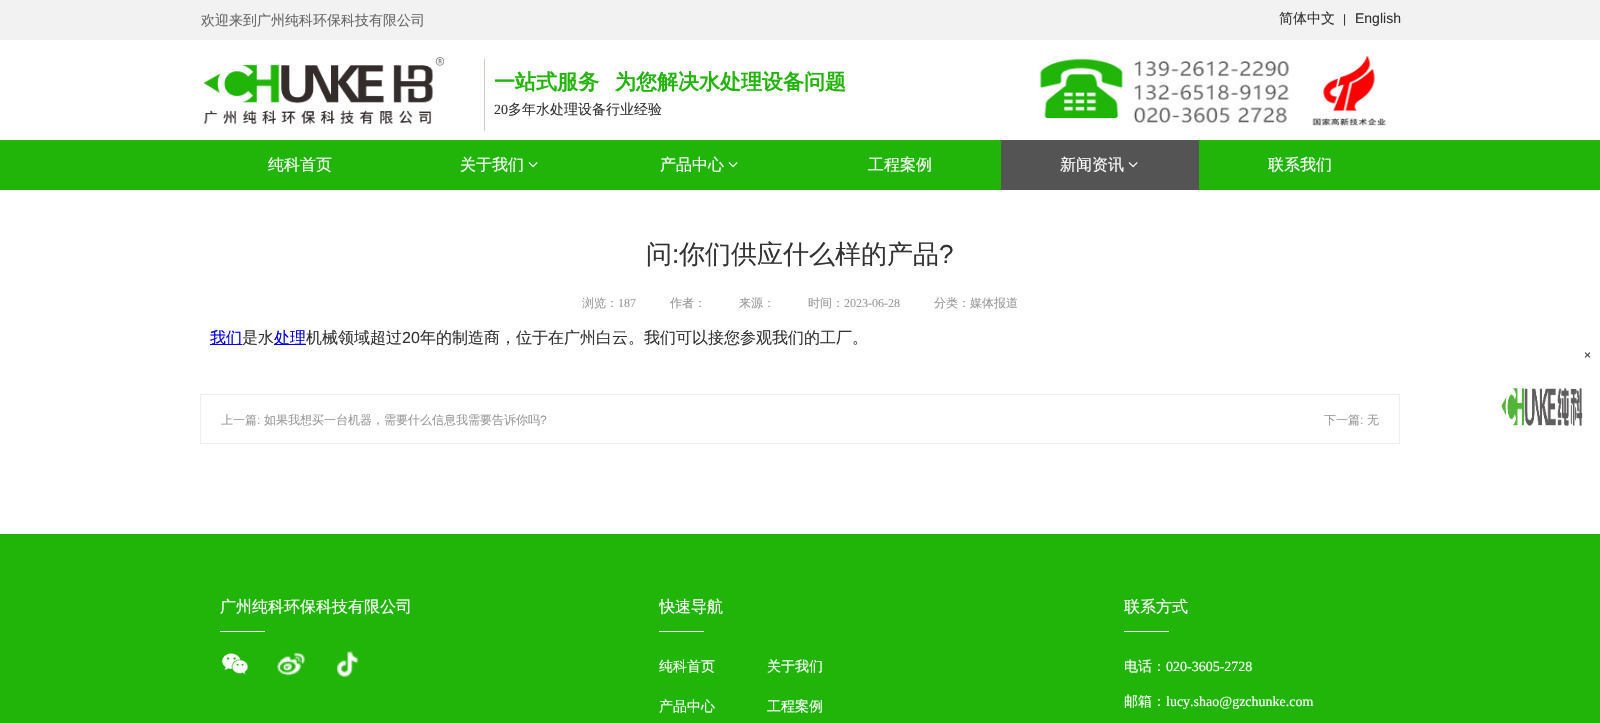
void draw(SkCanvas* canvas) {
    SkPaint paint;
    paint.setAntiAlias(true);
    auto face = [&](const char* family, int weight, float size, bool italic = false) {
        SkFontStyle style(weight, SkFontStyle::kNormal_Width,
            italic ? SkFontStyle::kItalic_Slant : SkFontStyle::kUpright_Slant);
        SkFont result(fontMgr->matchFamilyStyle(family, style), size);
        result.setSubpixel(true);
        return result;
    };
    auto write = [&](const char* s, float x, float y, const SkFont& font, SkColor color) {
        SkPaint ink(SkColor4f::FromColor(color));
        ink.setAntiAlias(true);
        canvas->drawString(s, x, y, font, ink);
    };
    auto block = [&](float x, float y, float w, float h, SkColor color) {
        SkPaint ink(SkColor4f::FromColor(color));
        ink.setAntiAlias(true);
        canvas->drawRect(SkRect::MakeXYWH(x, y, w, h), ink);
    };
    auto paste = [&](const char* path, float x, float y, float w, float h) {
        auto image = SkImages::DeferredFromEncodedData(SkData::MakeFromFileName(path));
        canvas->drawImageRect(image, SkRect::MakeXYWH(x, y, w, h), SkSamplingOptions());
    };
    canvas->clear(SK_ColorWHITE);
    block(0, 0, 1600, 40, SkColorSetRGB(242, 242, 242));
    auto kFont1 = face("WenQuanYi Zen Hei", 500, 14);
    write("欢迎来到广州纯科环保科技有限公司", 201, 25, kFont1, SkColorSetRGB(102, 102, 102));
    write("简体中文", 1279, 23, kFont1, SkColorSetRGB(51, 51, 51));
    auto kFont2 = face("Liberation Sans", 400, 12);
    write("|", 1343, 23, kFont2, SkColorSetRGB(51, 51, 51));
    auto kFont3 = face("Liberation Sans", 400, 14);
    write("English", 1355, 23, kFont3, SkColorSetRGB(51, 51, 51));
    paste("pic1.png", 203, 57, 241, 68);
    block(484, 59, 1, 72, SkColorSetRGB(204, 204, 204));
    auto kFont4 = face("WenQuanYi Zen Hei", 700, 21);
    write("一站式服务", 494, 89, kFont4, SkColorSetRGB(33, 181, 9));
    write("为您解决水处理设备问题", 615, 89, kFont4, SkColorSetRGB(33, 181, 9));
    paste("pic2.png", 1038, 57, 251, 66);
    paste("pic3.png", 1312, 56, 74, 71);
    auto kFont5 = face("Liberation Serif", 400, 14);
    write("20", 494, 114, kFont5, SkColorSetRGB(51, 51, 51));
    write("多年水处理设备行业经验", 508, 114, kFont1, SkColorSetRGB(51, 51, 51));
    block(0, 140, 1600, 50, SkColorSetRGB(33, 181, 9));
    auto kFont6 = face("WenQuanYi Zen Hei", 500, 16);
    write("纯科首页", 268, 170, kFont6, SK_ColorWHITE);
    write("关于我们", 460, 170, kFont6, SK_ColorWHITE);
    paste("pic4.png", 528, 162, 10, 6);
    write("产品中心", 660, 170, kFont6, SK_ColorWHITE);
    paste("pic4.png", 728, 162, 10, 6);
    write("工程案例", 868, 170, kFont6, SK_ColorWHITE);
    block(1001, 140, 198, 50, SkColorSetRGB(84, 84, 84));
    write("新闻资讯", 1060, 170, kFont6, SK_ColorWHITE);
    paste("pic5.png", 1128, 162, 10, 6);
    write("联系我们", 1268, 170, kFont6, SK_ColorWHITE);
    auto kFont7 = face("WenQuanYi Zen Hei", 500, 26);
    write("问", 646, 263, kFont7, SkColorSetRGB(51, 51, 51));
    auto kFont8 = face("Liberation Sans", 400, 26);
    write(":", 672, 263, kFont8, SkColorSetRGB(51, 51, 51));
    write("你们供应什么样的产品", 679, 263, kFont7, SkColorSetRGB(51, 51, 51));
    write("?", 939, 263, kFont8, SkColorSetRGB(51, 51, 51));
    auto kFont9 = face("WenQuanYi Zen Hei", 500, 12);
    write("浏览：", 582, 307, kFont9, SkColorSetRGB(153, 153, 153));
    auto kFont10 = face("Liberation Serif", 400, 12);
    write("187", 618, 307, kFont10, SkColorSetRGB(153, 153, 153));
    write("作者：", 670, 307, kFont9, SkColorSetRGB(153, 153, 153));
    write("来源：", 739, 307, kFont9, SkColorSetRGB(153, 153, 153));
    write("时间：", 808, 307, kFont9, SkColorSetRGB(153, 153, 153));
    write("2023-06-28", 844, 307, kFont10, SkColorSetRGB(153, 153, 153));
    write("分类：媒体报道", 934, 307, kFont9, SkColorSetRGB(153, 153, 153));
    block(210, 344, 32, 1, SkColorSetRGB(0, 0, 238));
    write("我们", 210, 343, kFont6, SkColorSetRGB(0, 0, 238));
    write("是水", 242, 343, kFont6, SkColorSetRGB(51, 51, 51));
    block(274, 344, 32, 1, SkColorSetRGB(0, 0, 238));
    write("处理", 274, 343, kFont6, SkColorSetRGB(0, 0, 238));
    write("机械领域超过", 306, 343, kFont6, SkColorSetRGB(51, 51, 51));
    auto kFont11 = face("Liberation Sans", 400, 16);
    write("20", 402, 343, kFont11, SkColorSetRGB(51, 51, 51));
    write("年的制造商，位于在广州白云。我们可以接您参观我们的工厂。", 420, 343, kFont6, SkColorSetRGB(51, 51, 51));
    paint.setStyle(SkPaint::kStroke_Style);
    paint.setStrokeWidth(1);
    paint.setColor(SkColorSetRGB(239, 239, 239));
    canvas->drawRect(SkRect::MakeXYWH(200.5f, 394.5f, 1199, 49), paint);
    write("上一篇", 221, 424, kFont9, SkColorSetRGB(153, 153, 153));
    write(":", 257, 424, kFont2, SkColorSetRGB(153, 153, 153));
    write("如果我想买一台机器，需要什么信息我需要告诉你吗", 264, 424, kFont9, SkColorSetRGB(153, 153, 153));
    write("?", 540, 424, kFont2, SkColorSetRGB(153, 153, 153));
    write("下一篇", 1324, 424, kFont9, SkColorSetRGB(153, 153, 153));
    write(":", 1360, 424, kFont2, SkColorSetRGB(153, 153, 153));
    write("无", 1367, 424, kFont9, SkColorSetRGB(153, 153, 153));
    write("×", 1584, 359, kFont2, SkColorSetRGB(51, 51, 51));
    paste("pic6.png", 1501, 388, 82, 38);
    block(0, 534, 1600, 189, SkColorSetRGB(33, 181, 9));
    write("广州纯科环保科技有限公司", 220, 612, kFont6, SK_ColorWHITE);
    canvas->save();
    canvas->clipRect(SkRect::MakeXYWH(659, 593, 182, 29));
    write("快速导航", 659, 612, kFont6, SK_ColorWHITE);
    canvas->restore();
    write("联系方式", 1124, 612, kFont6, SK_ColorWHITE);
    block(220, 631, 45, 1, SK_ColorWHITE);
    block(659, 631, 45, 1, SK_ColorWHITE);
    block(1124, 631, 45, 1, SK_ColorWHITE);
    paste("pic7.png", 222, 653, 26, 22);
    paste("pic8.png", 277, 652, 28, 24);
    paste("pic9.png", 336, 651, 23, 26);
    write("纯科首页", 659, 671, kFont1, SK_ColorWHITE);
    write("关于我们", 767, 671, kFont1, SK_ColorWHITE);
    write("产品中心", 659, 711, kFont1, SK_ColorWHITE);
    write("工程案例", 767, 711, kFont1, SK_ColorWHITE);
    write("电话：", 1124, 671, kFont1, SK_ColorWHITE);
    write("020-3605-2728", 1166, 671, kFont5, SK_ColorWHITE);
    write("邮箱：", 1124, 706, kFont1, SK_ColorWHITE);
    write("lucy.shao@gzchunke.com", 1166, 706, kFont5, SK_ColorWHITE);
}
